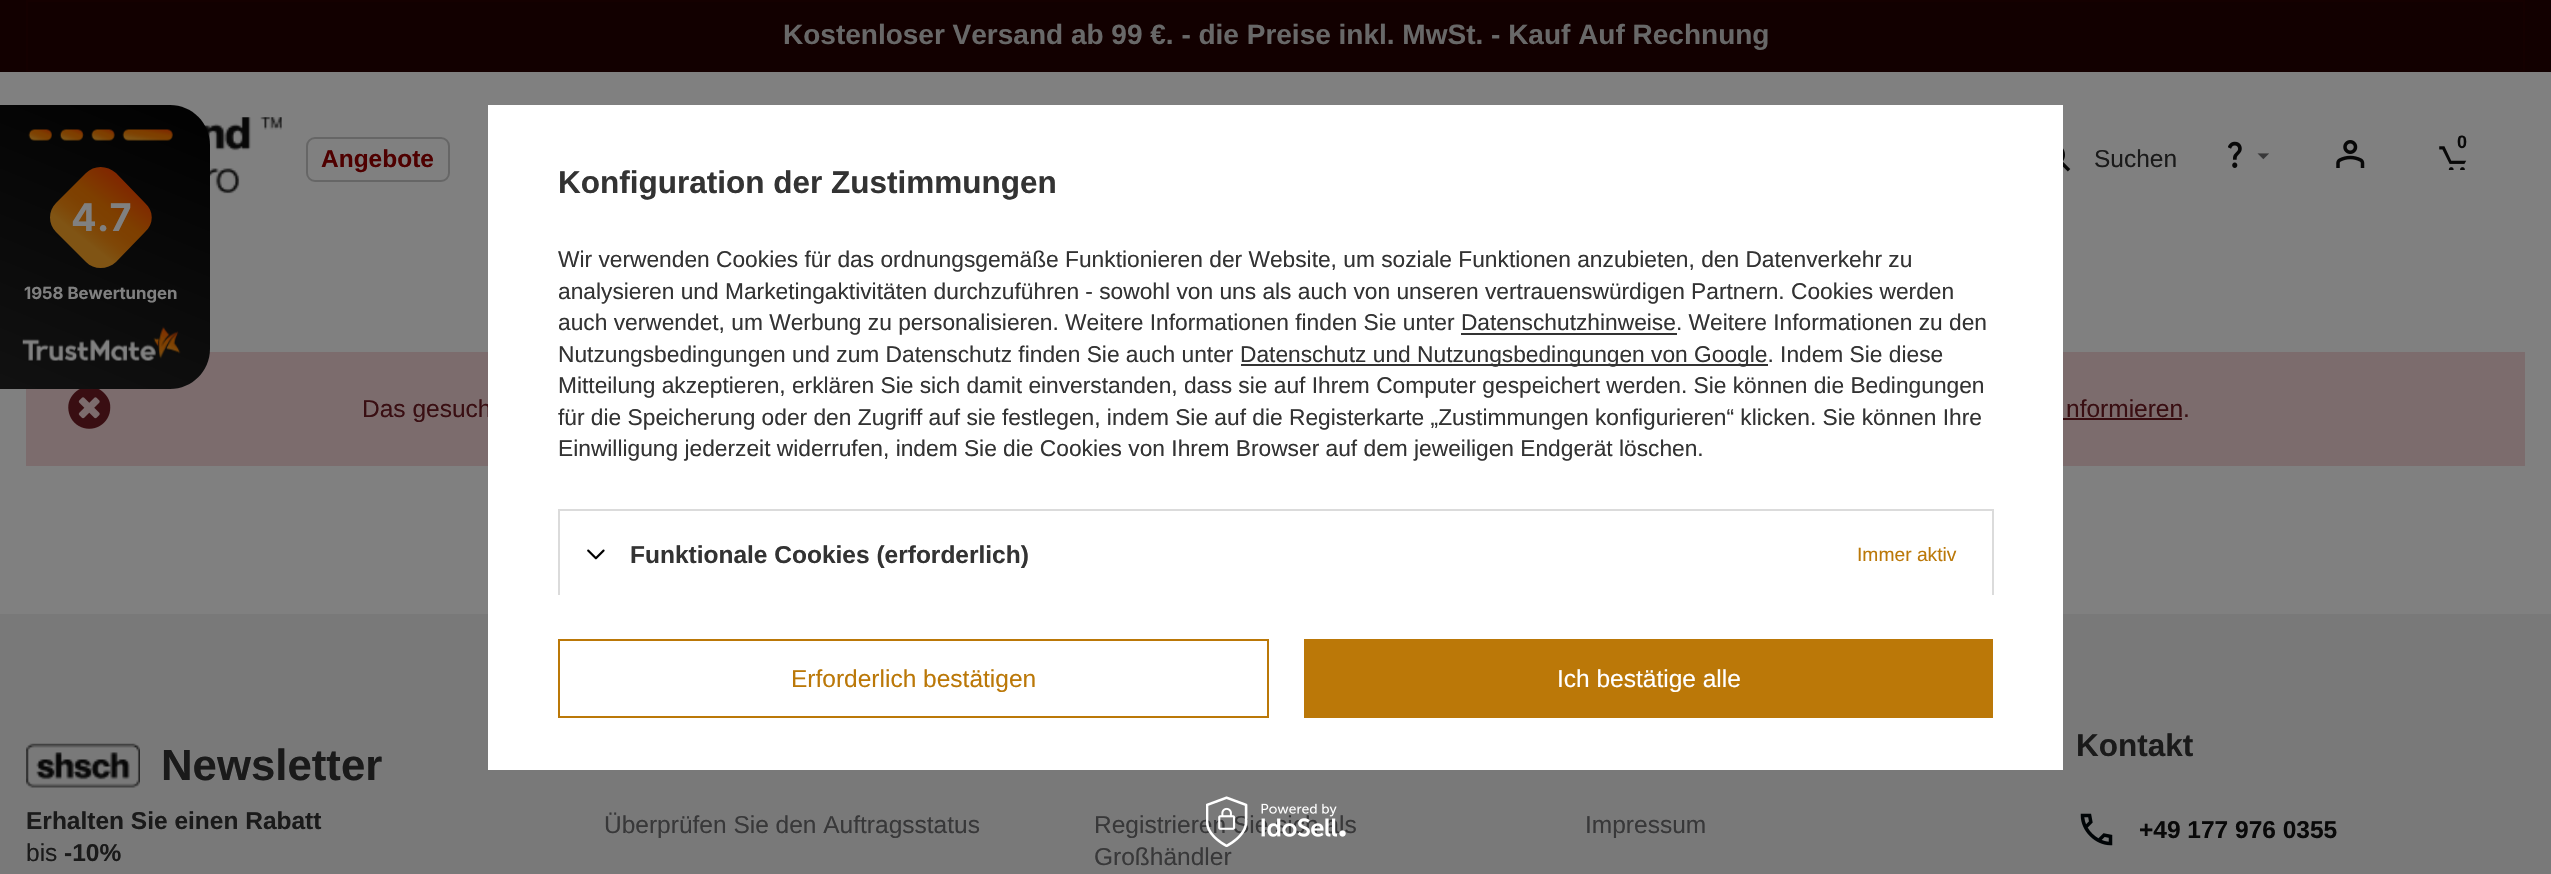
void draw(SkCanvas* canvas) {
    SkPaint paint;
    paint.setAntiAlias(true);
    auto face = [&](const char* family, int weight, float size, bool italic = false) {
        SkFontStyle style(weight, SkFontStyle::kNormal_Width,
            italic ? SkFontStyle::kItalic_Slant : SkFontStyle::kUpright_Slant);
        SkFont result(fontMgr->matchFamilyStyle(family, style), size);
        result.setSubpixel(true);
        return result;
    };
    auto write = [&](const char* s, float x, float y, const SkFont& font, SkColor color) {
        SkPaint ink(SkColor4f::FromColor(color));
        ink.setAntiAlias(true);
        canvas->drawString(s, x, y, font, ink);
    };
    auto block = [&](float x, float y, float w, float h, SkColor color) {
        SkPaint ink(SkColor4f::FromColor(color));
        ink.setAntiAlias(true);
        canvas->drawRect(SkRect::MakeXYWH(x, y, w, h), ink);
    };
    auto paste = [&](const char* path, float x, float y, float w, float h) {
        auto image = SkImages::DeferredFromEncodedData(SkData::MakeFromFileName(path));
        canvas->drawImageRect(image, SkRect::MakeXYWH(x, y, w, h), SkSamplingOptions());
    };
    canvas->clear(SkColorSetRGB(128, 128, 128));
    block(0, 0, 2551, 72, SkColorSetRGB(18, 0, 0));
    paint.setStyle(SkPaint::kStroke_Style);
    paint.setStrokeWidth(2);
    paint.setColor(SkColorSetRGB(21, 0, 0));
    canvas->drawRect(SkRect::MakeXYWH(27, 1, 2497, 70), paint);
    auto kFont1 = face("Liberation Sans", 700, 28);
    write("Kostenloser Versand ab 99 €. - die Preise inkl. MwSt. - Kauf Auf Rechnung", 783, 44, kFont1, SkColorSetRGB(104, 104, 104));
    paste("pic1.png", 204, 117, 78, 77);
    paint.setColor(SkColorSetRGB(102, 102, 102));
    canvas->drawRoundRect(SkRect::MakeXYWH(307, 138, 142, 43), 8, 8, paint);
    auto kFont2 = face("Liberation Sans", 700, 24.5f);
    write("Angebote", 321, 167, kFont2, SkColorSetRGB(79, 0, 0));
    paste("pic2.png", 2063, 148, 8, 24);
    auto kFont3 = face("Liberation Sans", 400, 24.5f);
    write("Suchen", 2094, 167, kFont3, SkColorSetRGB(26, 26, 26));
    paste("pic3.png", 2228, 141, 41, 27);
    paste("pic4.png", 2336, 140, 29, 28);
    auto kFont4 = face("Liberation Sans", 700, 18);
    write("0", 2457, 148, kFont4, SkColorSetRGB(9, 9, 9));
    paste("pic5.png", 2439, 146, 28, 24);
    block(26, 352, 2499, 114, SkColorSetRGB(124, 108, 109));
    paste("pic6.png", 68, 389, 43, 40);
    write("Das gesuch", 362, 417, kFont3, SkColorSetRGB(57, 14, 18));
    write("nformieren.", 2066, 417, kFont3, SkColorSetRGB(57, 14, 18));
    block(2063, 418, 119, 2, SkColorSetRGB(57, 14, 18));
    paint.setStyle(SkPaint::kFill_Style);
    {
        const SkColor colors[] = {SkColorSetRGB(24, 24, 24), SK_ColorBLACK};
        const float stops[] = {0.03f, 1};
        const SkPoint ends[] = {{-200, 479}, {-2.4f, -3.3f}};
        paint.setShader(SkGradientShader::MakeLinear(ends, colors, stops, 2, SkTileMode::kClamp));
        paint.setAlpha(255);
    }
    canvas->drawPath(SkPathBuilder().moveTo(-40, 105).lineTo(170, 105).cubicTo(192, 105, 210, 123, 210, 145).lineTo(210, 349).cubicTo(210, 371, 192, 389, 170, 389).lineTo(-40, 389).close().detach(), paint);
    paste("pic7.png", 28, 129, 145, 12);
    {
        const SkColor colors[] = {SkColorSetRGB(128, 84, 20), SkColorSetRGB(127, 80, 16), SkColorSetRGB(127, 71, 7), SkColorSetRGB(126, 65, 2), SkColorSetRGB(126, 63, 0), SkColorSetRGB(128, 36, 0)};
        const float stops[] = {0.2f, 0.24f, 0.36f, 0.49f, 0.62f, 1};
        const SkPoint ends[] = {{72, 254}, {130, 181}};
        paint.setShader(SkGradientShader::MakeLinear(ends, colors, stops, 6, SkTileMode::kClamp));
        paint.setAlpha(255);
    }
    canvas->drawPath(SkPathBuilder().moveTo(116, 173).lineTo(145, 203).cubicTo(154, 211, 154, 224, 145, 232).lineTo(116, 262).cubicTo(107, 270, 94, 270, 86, 262).lineTo(56, 232).cubicTo(48, 224, 48, 211, 56, 203).lineTo(86, 173).cubicTo(94, 165, 107, 165, 116, 173).close().detach(), paint);
    auto kFont5 = face("Inter", 700, 38);
    write("4.7", 71, 231, kFont5, SkColorSetRGB(128, 128, 128));
    auto kFont6 = face("Inter", 700, 16.75f);
    write("1958 Bewertungen", 24, 299, kFont6, SkColorSetRGB(128, 128, 128));
    paste("pic8.png", 22, 326, 159, 35);
    block(0, 614, 2551, 260, SkColorSetRGB(121, 121, 121));
    block(488, 105, 1575, 665, SK_ColorWHITE);
    auto kFont7 = face("Liberation Sans", 700, 31.5f);
    write("Konfiguration der Zustimmungen", 558, 193, kFont7, SkColorSetRGB(51, 51, 51));
    auto kFont8 = face("Liberation Sans", 400, 22.75f);
    write("Wir verwenden Cookies für das ordnungsgemäße Funktionieren der Website, um soziale Funktionen anzubieten, den Datenverkehr zu", 558, 267, kFont8, SkColorSetRGB(51, 51, 51));
    write("analysieren und Marketingaktivitäten durchzuführen - sowohl von uns als auch von unseren vertrauenswürdigen Partnern. Cookies werden", 558, 299, kFont8, SkColorSetRGB(51, 51, 51));
    write("auch verwendet, um Werbung zu personalisieren. Weitere Informationen finden Sie unter Datenschutzhinweise. Weitere Informationen zu den", 558, 330, kFont8, SkColorSetRGB(51, 51, 51));
    block(1461, 333, 216, 2, SkColorSetRGB(51, 51, 51));
    write("Nutzungsbedingungen und zum Datenschutz finden Sie auch unter", 558, 362, kFont8, SkColorSetRGB(51, 51, 51));
    block(1241, 364, 527, 2, SkColorSetRGB(51, 51, 51));
    write("Datenschutz und Nutzungsbedingungen von Google. Indem Sie diese", 1240, 362, kFont8, SkColorSetRGB(51, 51, 51));
    write("Mitteilung akzeptieren, erklären Sie sich damit einverstanden, dass sie auf Ihrem Computer gespeichert werden. Sie können die Bedingungen", 558, 393, kFont8, SkColorSetRGB(51, 51, 51));
    write("für die Speicherung oder den Zugriff auf sie festlegen, indem Sie auf die Registerkarte „Zustimmungen konfigurieren“ klicken. Sie können Ihre", 558, 425, kFont8, SkColorSetRGB(51, 51, 51));
    write("Einwilligung jederzeit widerrufen, indem Sie die Cookies von Ihrem Browser auf dem jeweiligen Endgerät löschen.", 558, 456, kFont8, SkColorSetRGB(51, 51, 51));
    block(558, 509, 1435, 2, SkColorSetRGB(219, 219, 219));
    block(1992, 509, 2, 86, SkColorSetRGB(219, 219, 219));
    block(558, 509, 2, 86, SkColorSetRGB(219, 219, 219));
    paste("pic9.png", 587, 549, 18, 11);
    write("Funktionale Cookies (erforderlich)", 630, 563, kFont2, SkColorSetRGB(51, 51, 51));
    auto kFont9 = face("Liberation Sans", 400, 19.25f);
    write("Immer aktiv", 1857, 561, kFont9, SkColorSetRGB(187, 120, 8));
    paint.setStyle(SkPaint::kStroke_Style);
    paint.setShader(nullptr);
    paint.setColor(SkColorSetRGB(187, 120, 8));
    canvas->drawRect(SkRect::MakeXYWH(559, 640, 709, 77), paint);
    write("Erforderlich bestätigen", 791, 687, kFont3, SkColorSetRGB(187, 120, 8));
    block(1304, 639, 689, 79, SkColorSetRGB(187, 120, 8));
    write("Ich bestätige alle", 1557, 687, kFont3, SK_ColorWHITE);
    write("Registrieren Sie sich als", 1094, 833, kFont3, SkColorSetRGB(56, 56, 57));
    paste("pic10.png", 1206, 796, 140, 51);
    paste("pic11.png", 26, 743, 114, 45);
    auto kFont10 = face("Liberation Sans", 700, 43.75f);
    write("Newsletter", 161, 780, kFont10, SkColorSetRGB(26, 26, 26));
    write("Erhalten Sie einen Rabatt", 26, 829, kFont2, SkColorSetRGB(26, 26, 26));
    write("bis", 26, 861, kFont3, SkColorSetRGB(26, 26, 26));
    write("-10%", 64, 861, kFont2, SkColorSetRGB(26, 26, 26));
    write("Überprüfen Sie den Auftragsstatus", 604, 833, kFont3, SkColorSetRGB(56, 56, 57));
    write("Großhändler", 1094, 865, kFont3, SkColorSetRGB(56, 56, 57));
    write("Impressum", 1585, 833, kFont3, SkColorSetRGB(56, 56, 57));
    write("Kontakt", 2076, 756, kFont7, SkColorSetRGB(26, 26, 26));
    paste("pic12.png", 2080, 813, 33, 33);
    write("+49 177 976 0355", 2139, 838, kFont2, SkColorSetRGB(9, 9, 9));
}
